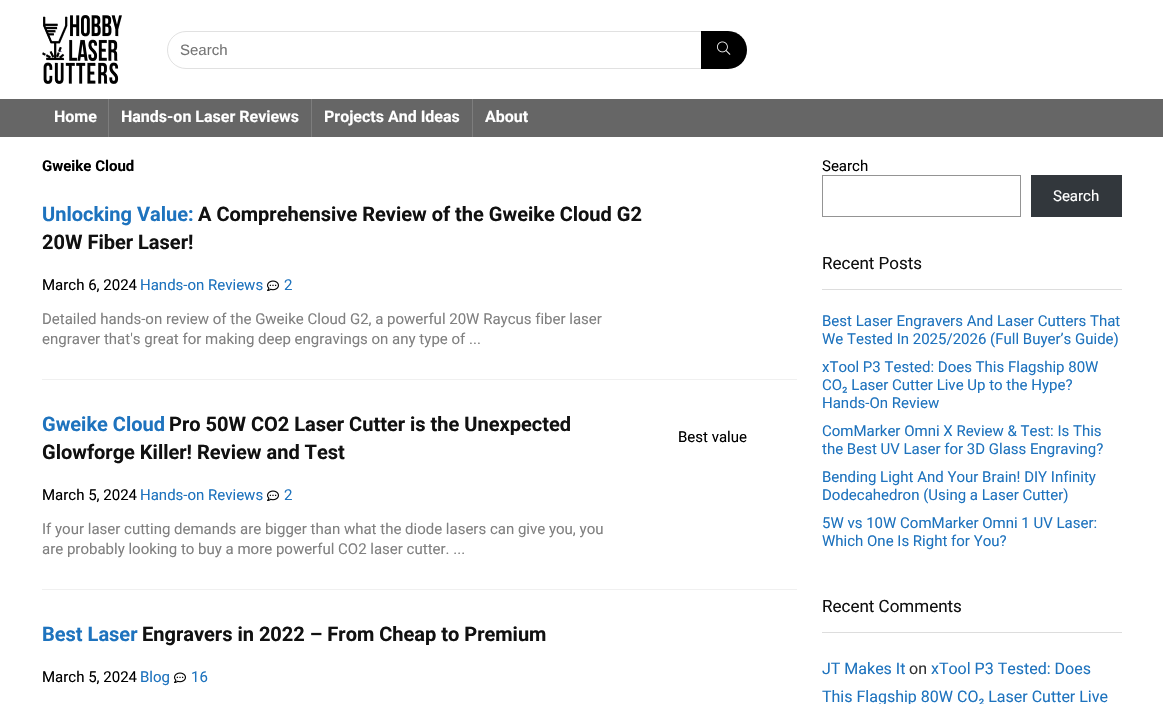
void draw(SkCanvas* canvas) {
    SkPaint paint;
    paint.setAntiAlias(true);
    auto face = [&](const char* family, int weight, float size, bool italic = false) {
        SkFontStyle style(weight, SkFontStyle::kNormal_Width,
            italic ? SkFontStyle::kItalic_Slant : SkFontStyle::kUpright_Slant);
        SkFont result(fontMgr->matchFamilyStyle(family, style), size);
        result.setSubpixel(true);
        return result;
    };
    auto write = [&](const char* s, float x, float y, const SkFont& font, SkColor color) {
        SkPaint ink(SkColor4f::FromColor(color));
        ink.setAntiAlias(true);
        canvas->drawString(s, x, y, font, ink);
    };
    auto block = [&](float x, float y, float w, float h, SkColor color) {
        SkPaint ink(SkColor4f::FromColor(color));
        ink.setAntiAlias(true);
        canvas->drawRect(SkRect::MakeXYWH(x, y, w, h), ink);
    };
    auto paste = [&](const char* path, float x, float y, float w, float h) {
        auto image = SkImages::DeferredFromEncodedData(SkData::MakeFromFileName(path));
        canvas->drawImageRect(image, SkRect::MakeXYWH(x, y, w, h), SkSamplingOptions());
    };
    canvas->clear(SK_ColorWHITE);
    paste("pic1.png", 42, 15, 80, 69);
    paint.setStyle(SkPaint::kStroke_Style);
    paint.setStrokeWidth(1);
    paint.setColor(SkColorSetRGB(225, 225, 225));
    canvas->drawRoundRect(SkRect::MakeXYWH(167.5f, 31.5f, 579, 37), 18.5f, 18.5f, paint);
    auto kFont1 = face("Liberation Sans", 400, 15);
    write("Search", 180, 55, kFont1, SkColorSetRGB(117, 117, 117));
    paint.setStyle(SkPaint::kFill_Style);
    paint.setColor(SK_ColorBLACK);
    canvas->drawPath(SkPathBuilder().moveTo(701, 31).lineTo(728, 31).cubicTo(738.5f, 31, 747, 39.5f, 747, 50).cubicTo(747, 60.5f, 738.5f, 69, 728, 69).lineTo(701, 69).close().detach(), paint);
    paste("pic2.png", 717, 41, 14, 14);
    block(0, 99, 1163, 38, SkColorSetRGB(102, 102, 102));
    block(108, 99, 1, 38, SkColorSetRGB(125, 125, 125));
    auto kFont2 = face("Roboto", 700, 16);
    write("Home", 54, 122, kFont2, SK_ColorWHITE);
    block(311, 99, 1, 38, SkColorSetRGB(125, 125, 125));
    write("Hands-on Laser Reviews", 121, 122, kFont2, SK_ColorWHITE);
    block(472, 99, 1, 38, SkColorSetRGB(125, 125, 125));
    write("Projects And Ideas", 324, 122, kFont2, SK_ColorWHITE);
    write("About", 485, 122, kFont2, SK_ColorWHITE);
    auto kFont3 = face("Roboto", 700, 15);
    write("Gweike Cloud", 42, 171, kFont3, SK_ColorBLACK);
    block(42, 379, 755, 1, SkColorSetRGB(240, 240, 240));
    auto kFont4 = face("Roboto", 700, 20);
    write("Unlocking Value:", 42, 221, kFont4, SkColorSetRGB(30, 115, 190));
    write("A Comprehensive Review of the Gweike Cloud G2", 198, 221, kFont4, SkColorSetRGB(17, 17, 17));
    write("20W Fiber Laser!", 42, 249, kFont4, SkColorSetRGB(17, 17, 17));
    auto kFont5 = face("Roboto", 400, 15);
    write("March 6, 2024", 42, 290, kFont5, SK_ColorBLACK);
    write("Hands-on Reviews", 140, 290, kFont5, SkColorSetRGB(30, 115, 190));
    paste("pic3.png", 267, 280, 12, 11);
    write("2", 284, 290, kFont5, SkColorSetRGB(30, 115, 190));
    write("Detailed hands-on review of the Gweike Cloud G2, a powerful 20W Raycus fiber laser", 42, 324, kFont5, SkColorSetRGB(128, 128, 128));
    write("engraver that's great for making deep engravings on any type of ...", 42, 344, kFont5, SkColorSetRGB(128, 128, 128));
    block(42, 589, 755, 1, SkColorSetRGB(240, 240, 240));
    write("Gweike Cloud", 42, 431, kFont4, SkColorSetRGB(30, 115, 190));
    write("Pro 50W CO2 Laser Cutter is the Unexpected", 169, 431, kFont4, SkColorSetRGB(17, 17, 17));
    write("Glowforge Killer! Review and Test", 42, 459, kFont4, SkColorSetRGB(17, 17, 17));
    write("March 5, 2024", 42, 500, kFont5, SK_ColorBLACK);
    write("Hands-on Reviews", 140, 500, kFont5, SkColorSetRGB(30, 115, 190));
    paste("pic3.png", 267, 490, 12, 11);
    write("2", 284, 500, kFont5, SkColorSetRGB(30, 115, 190));
    write("If your laser cutting demands are bigger than what the diode lasers can give you, you", 42, 534, kFont5, SkColorSetRGB(128, 128, 128));
    write("are probably looking to buy a more powerful CO2 laser cutter. ...", 42, 554, kFont5, SkColorSetRGB(128, 128, 128));
    write("Best value", 678, 442, kFont5, SK_ColorBLACK);
    write("Best Laser", 42, 641, kFont4, SkColorSetRGB(30, 115, 190));
    write("Engravers in 2022 – From Cheap to Premium", 142, 641, kFont4, SkColorSetRGB(17, 17, 17));
    write("March 5, 2024", 42, 682, kFont5, SK_ColorBLACK);
    write("Blog", 140, 682, kFont5, SkColorSetRGB(30, 115, 190));
    paste("pic3.png", 174, 672, 12, 11);
    write("16", 191, 682, kFont5, SkColorSetRGB(30, 115, 190));
    write("Search", 822, 171, kFont5, SK_ColorBLACK);
    paint.setStyle(SkPaint::kStroke_Style);
    paint.setColor(SkColorSetRGB(148, 148, 148));
    canvas->drawRect(SkRect::MakeXYWH(822.5f, 175.5f, 198, 41), paint);
    block(1031, 175, 91, 42, SkColorSetRGB(50, 55, 60));
    write("Search", 1053, 201, kFont5, SK_ColorWHITE);
    block(822, 289, 300, 1, SkColorSetRGB(221, 221, 221));
    auto kFont6 = face("Roboto", 400, 17);
    write("Recent Posts", 822, 269, kFont6, SkColorSetRGB(17, 17, 17));
    write("Best Laser Engravers And Laser Cutters That", 822, 326, kFont5, SkColorSetRGB(30, 115, 190));
    write("We Tested In 2025/2026 (Full Buyer’s Guide)", 822, 344, kFont5, SkColorSetRGB(30, 115, 190));
    write("xTool P3 Tested: Does This Flagship 80W", 822, 372, kFont5, SkColorSetRGB(30, 115, 190));
    write("CO₂ Laser Cutter Live Up to the Hype?", 822, 390, kFont5, SkColorSetRGB(30, 115, 190));
    write("Hands-On Review", 822, 408, kFont5, SkColorSetRGB(30, 115, 190));
    write("ComMarker Omni X Review & Test: Is This", 822, 436, kFont5, SkColorSetRGB(30, 115, 190));
    write("the Best UV Laser for 3D Glass Engraving?", 822, 454, kFont5, SkColorSetRGB(30, 115, 190));
    write("Bending Light And Your Brain! DIY Infinity", 822, 482, kFont5, SkColorSetRGB(30, 115, 190));
    write("Dodecahedron (Using a Laser Cutter)", 822, 500, kFont5, SkColorSetRGB(30, 115, 190));
    write("5W vs 10W ComMarker Omni 1 UV Laser:", 822, 528, kFont5, SkColorSetRGB(30, 115, 190));
    write("Which One Is Right for You?", 822, 546, kFont5, SkColorSetRGB(30, 115, 190));
    block(822, 632, 300, 1, SkColorSetRGB(221, 221, 221));
    write("Recent Comments", 822, 612, kFont6, SkColorSetRGB(17, 17, 17));
    auto kFont7 = face("Roboto", 400, 16);
    write("JT Makes It", 822, 674, kFont7, SkColorSetRGB(30, 115, 190));
    write("on", 909, 674, kFont7, SkColorSetRGB(51, 51, 51));
    write("xTool P3 Tested: Does", 931, 674, kFont7, SkColorSetRGB(30, 115, 190));
    write("This Flagship 80W CO₂ Laser Cutter Live", 822, 702, kFont7, SkColorSetRGB(30, 115, 190));
}
